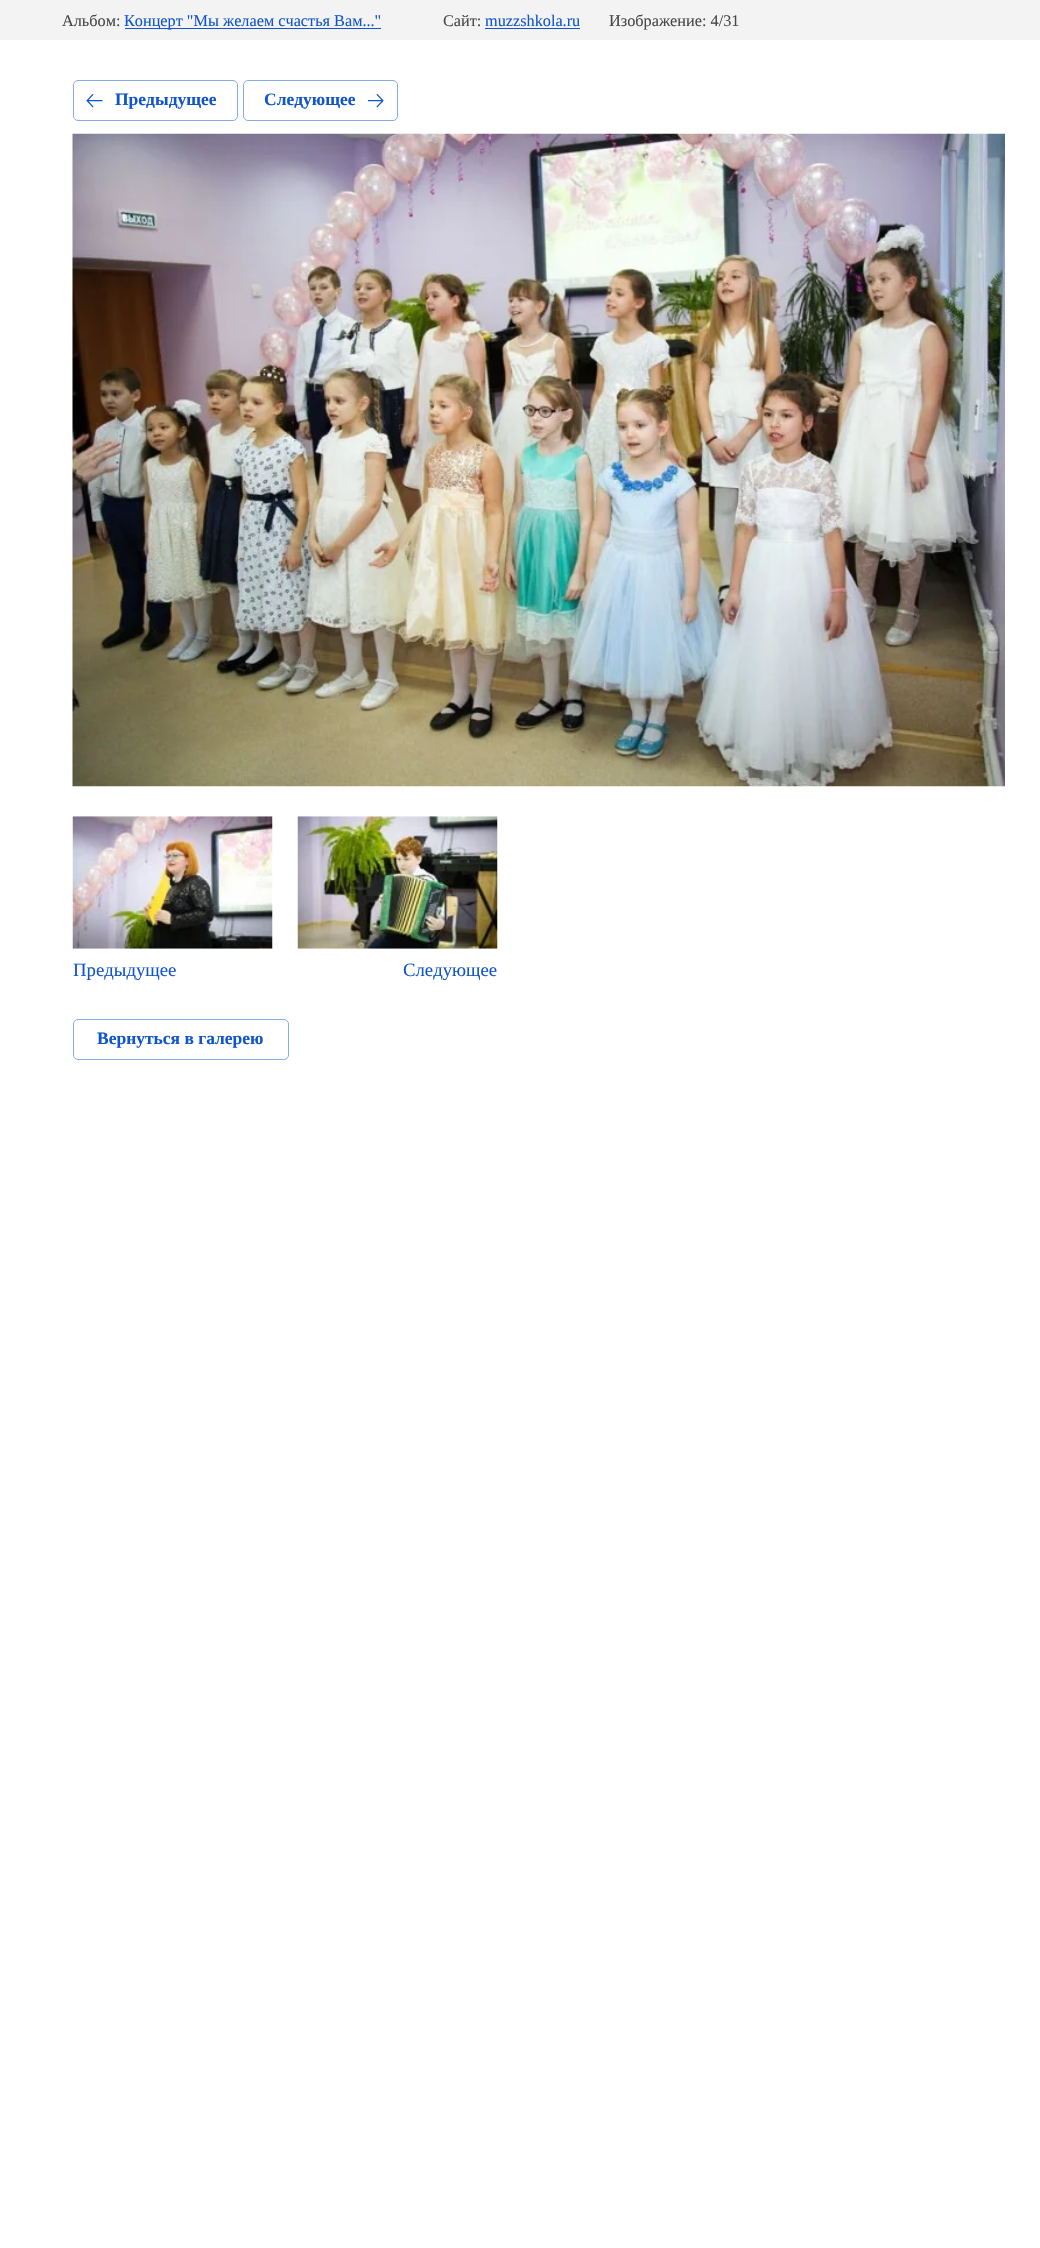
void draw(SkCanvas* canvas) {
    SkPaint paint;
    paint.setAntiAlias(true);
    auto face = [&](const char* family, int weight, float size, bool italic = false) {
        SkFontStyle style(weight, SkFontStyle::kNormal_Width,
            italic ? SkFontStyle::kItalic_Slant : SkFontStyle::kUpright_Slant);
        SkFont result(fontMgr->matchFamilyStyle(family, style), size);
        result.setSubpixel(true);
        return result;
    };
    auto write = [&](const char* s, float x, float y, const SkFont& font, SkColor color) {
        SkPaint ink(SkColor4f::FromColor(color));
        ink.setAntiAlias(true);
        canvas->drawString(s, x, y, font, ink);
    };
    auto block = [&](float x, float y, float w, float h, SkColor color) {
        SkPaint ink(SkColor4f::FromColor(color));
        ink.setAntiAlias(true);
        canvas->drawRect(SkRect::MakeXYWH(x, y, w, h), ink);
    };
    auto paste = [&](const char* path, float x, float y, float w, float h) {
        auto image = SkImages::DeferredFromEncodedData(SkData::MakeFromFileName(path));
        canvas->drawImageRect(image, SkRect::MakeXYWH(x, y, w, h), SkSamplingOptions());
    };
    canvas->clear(SK_ColorWHITE);
    block(0, 0, 1040, 40, SkColorSetRGB(243, 243, 243));
    auto kFont1 = face("Liberation Serif", 400, 16.25f);
    write("Альбом:", 62, 26, kFont1, SkColorSetRGB(72, 72, 72));
    block(125, 28, 256, 1, SkColorSetRGB(17, 85, 204));
    write("Концерт \"Мы желаем счастья Вам...\"", 124, 26, kFont1, SkColorSetRGB(17, 85, 204));
    write("Сайт:", 443, 26, kFont1, SkColorSetRGB(72, 72, 72));
    write("muzzshkola.ru", 485, 26, kFont1, SkColorSetRGB(17, 85, 204));
    block(485, 28, 95, 1, SkColorSetRGB(17, 85, 204));
    write("Изображение: 4/31", 609, 26, kFont1, SkColorSetRGB(72, 72, 72));
    paint.setStyle(SkPaint::kStroke_Style);
    paint.setStrokeWidth(1);
    paint.setColor(SkColorSetRGB(136, 170, 230));
    canvas->drawRoundRect(SkRect::MakeXYWH(73.5f, 80.5f, 164, 40), 4.5f, 4.5f, paint);
    paste("pic1.png", 86, 94, 17, 14);
    auto kFont2 = face("Liberation Serif", 700, 17.5f);
    write("Предыдущее", 115, 105, kFont2, SkColorSetRGB(17, 85, 204));
    canvas->drawRoundRect(SkRect::MakeXYWH(243.5f, 80.5f, 154, 40), 4.5f, 4.5f, paint);
    write("Следующее", 264, 105, kFont2, SkColorSetRGB(17, 85, 204));
    paste("pic2.png", 368, 94, 16, 14);
    paste("pic3.png", 72, 133, 933, 654);
    paste("pic4.png", 72, 816, 201, 133);
    auto kFont3 = face("Liberation Serif", 400, 18.75f);
    write("Предыдущее", 73, 976, kFont3, SkColorSetRGB(17, 85, 204));
    paste("pic5.png", 297, 816, 201, 133);
    write("Следующее", 403, 976, kFont3, SkColorSetRGB(17, 85, 204));
    canvas->drawRoundRect(SkRect::MakeXYWH(73.5f, 1019.5f, 215, 40), 4.5f, 4.5f, paint);
    write("Вернуться в галерею", 97, 1044, kFont2, SkColorSetRGB(17, 85, 204));
}
